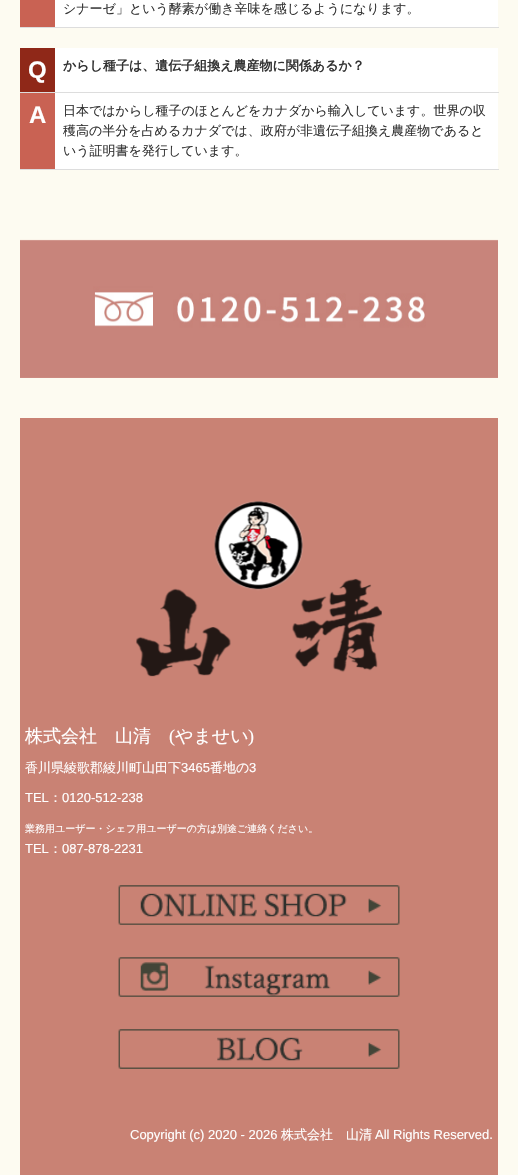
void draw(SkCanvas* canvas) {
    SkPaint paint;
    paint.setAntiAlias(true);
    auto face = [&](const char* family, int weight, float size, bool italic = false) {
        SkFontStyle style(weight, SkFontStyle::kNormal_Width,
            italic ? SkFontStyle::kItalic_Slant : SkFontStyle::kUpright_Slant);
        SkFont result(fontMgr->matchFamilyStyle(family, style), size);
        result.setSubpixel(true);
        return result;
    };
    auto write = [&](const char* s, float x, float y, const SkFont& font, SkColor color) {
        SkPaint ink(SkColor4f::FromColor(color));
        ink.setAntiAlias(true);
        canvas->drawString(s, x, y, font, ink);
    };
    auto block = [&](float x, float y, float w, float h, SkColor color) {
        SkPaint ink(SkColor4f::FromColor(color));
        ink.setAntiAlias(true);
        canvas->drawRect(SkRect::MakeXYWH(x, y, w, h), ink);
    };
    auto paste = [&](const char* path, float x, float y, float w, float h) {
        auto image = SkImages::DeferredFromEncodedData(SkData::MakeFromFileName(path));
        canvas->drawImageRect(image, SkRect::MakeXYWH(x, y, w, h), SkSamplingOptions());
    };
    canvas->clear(SkColorSetRGB(253, 251, 241));
    block(20, 0, 35, 27, SkColorSetRGB(201, 98, 83));
    block(55, 0, 443, 27, SK_ColorWHITE);
    block(20, 27, 479, 1, SkColorSetRGB(221, 221, 221));
    auto kFont1 = face("WenQuanYi Zen Hei", 500, 13);
    write("シナーゼ」という酵素が働き辛味を感じるようになります。", 63, 13, kFont1, SkColorSetRGB(51, 51, 51));
    block(20, 48, 35, 44, SkColorSetRGB(143, 40, 24));
    auto kFont2 = face("Liberation Sans", 700, 24);
    write("Q", 28, 78, kFont2, SK_ColorWHITE);
    block(55, 48, 443, 44, SK_ColorWHITE);
    block(20, 92, 479, 1, SkColorSetRGB(221, 221, 221));
    auto kFont3 = face("WenQuanYi Zen Hei", 700, 13);
    write("からし種子は、遺伝子組換え農産物に関係あるか？", 63, 70, kFont3, SkColorSetRGB(51, 51, 51));
    block(20, 93, 35, 76, SkColorSetRGB(201, 98, 83));
    write("A", 29, 123, kFont2, SK_ColorWHITE);
    block(55, 93, 443, 76, SK_ColorWHITE);
    block(20, 169, 479, 1, SkColorSetRGB(221, 221, 221));
    write("日本ではからし種子のほとんどをカナダから輸入しています。世界の収", 63, 115, kFont1, SkColorSetRGB(51, 51, 51));
    write("穫高の半分を占めるカナダでは、政府が非遺伝子組換え農産物であると", 63, 135, kFont1, SkColorSetRGB(51, 51, 51));
    write("いう証明書を発行しています。", 63, 155, kFont1, SkColorSetRGB(51, 51, 51));
    paste("pic1.png", 20, 239, 478, 139);
    block(20, 418, 478, 757, SkColorSetRGB(201, 130, 116));
    paste("pic2.png", 136, 501, 246, 176);
    auto kFont4 = face("WenQuanYi Zen Hei", 500, 18);
    write("株式会社　山清", 25, 742, kFont4, SK_ColorWHITE);
    auto kFont5 = face("Liberation Serif", 400, 18);
    write("(", 169, 742, kFont5, SK_ColorWHITE);
    write("やませい", 175, 742, kFont4, SK_ColorWHITE);
    write(")", 248, 742, kFont5, SK_ColorWHITE);
    write("香川県綾歌郡綾川町山田下", 25, 772, kFont1, SK_ColorWHITE);
    auto kFont6 = face("Liberation Sans", 400, 13);
    write("3465", 181, 772, kFont6, SK_ColorWHITE);
    write("番地の", 210, 772, kFont1, SK_ColorWHITE);
    write("3", 249, 772, kFont6, SK_ColorWHITE);
    write("TEL", 25, 802, kFont6, SK_ColorWHITE);
    write("：", 49, 802, kFont1, SK_ColorWHITE);
    write("0120-512-238", 62, 802, kFont6, SK_ColorWHITE);
    auto kFont7 = face("WenQuanYi Zen Hei", 500, 10);
    write("業務用ユーザー・シェフ用ユーザーの方は別途ご連絡ください。", 25, 832, kFont7, SK_ColorWHITE);
    write("TEL", 25, 853, kFont6, SK_ColorWHITE);
    write("：", 49, 853, kFont1, SK_ColorWHITE);
    write("087-878-2231", 62, 853, kFont6, SK_ColorWHITE);
    paste("pic3.png", 118, 885, 282, 40);
    paste("pic4.png", 118, 957, 282, 40);
    paste("pic5.png", 118, 1029, 282, 40);
    write("Copyright (c) 2020 - 2026", 130, 1139, kFont6, SK_ColorWHITE);
    write("株式会社　山清", 281, 1139, kFont1, SK_ColorWHITE);
    write("All Rights Reserved.", 375, 1139, kFont6, SK_ColorWHITE);
}
